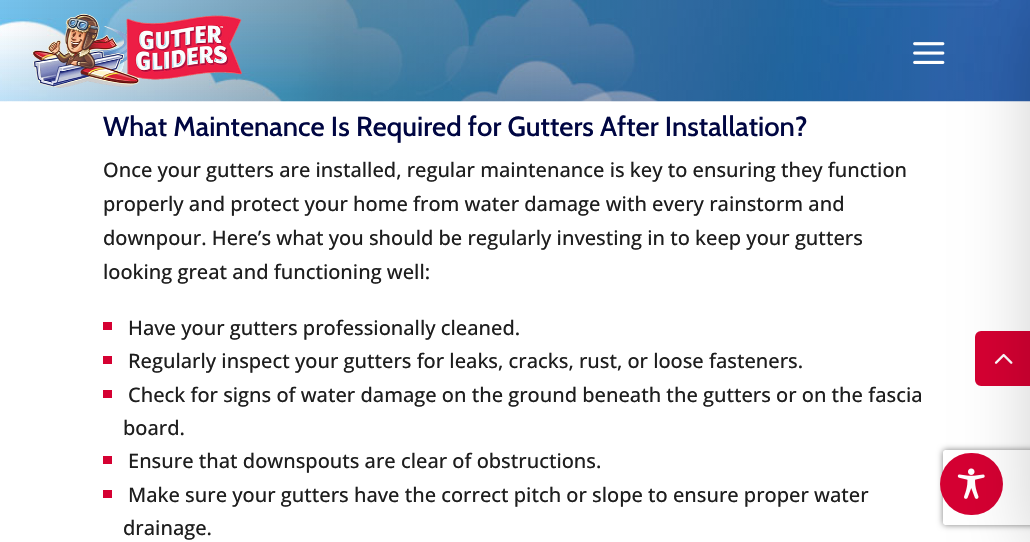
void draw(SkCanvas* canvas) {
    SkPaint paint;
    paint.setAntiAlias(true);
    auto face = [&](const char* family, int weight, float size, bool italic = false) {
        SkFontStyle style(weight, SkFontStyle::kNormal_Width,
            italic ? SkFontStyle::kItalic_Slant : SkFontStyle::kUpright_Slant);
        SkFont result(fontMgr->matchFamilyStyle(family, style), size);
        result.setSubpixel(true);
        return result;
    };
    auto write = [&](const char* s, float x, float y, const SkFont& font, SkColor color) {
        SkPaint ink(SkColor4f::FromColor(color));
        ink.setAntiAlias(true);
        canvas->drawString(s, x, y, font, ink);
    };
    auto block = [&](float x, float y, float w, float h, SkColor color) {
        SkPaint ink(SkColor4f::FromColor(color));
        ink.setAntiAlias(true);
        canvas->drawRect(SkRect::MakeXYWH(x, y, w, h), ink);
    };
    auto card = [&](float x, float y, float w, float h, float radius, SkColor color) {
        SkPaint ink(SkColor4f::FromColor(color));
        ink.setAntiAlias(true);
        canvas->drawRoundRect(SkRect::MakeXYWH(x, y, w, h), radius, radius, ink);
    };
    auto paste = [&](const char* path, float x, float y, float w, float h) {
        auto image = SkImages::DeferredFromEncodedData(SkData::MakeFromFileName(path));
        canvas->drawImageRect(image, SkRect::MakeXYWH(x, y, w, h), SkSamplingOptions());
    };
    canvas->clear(SK_ColorWHITE);
    paste("pic1.png", 0, 0, 1030, 102);
    paste("pic2.png", 32, 13, 211, 75);
    paste("pic3.png", 913, 42, 32, 22);
    auto kFont1 = face("Cabin", 500, 27.5f);
    write("What Maintenance Is Required for Gutters After Installation?", 103, 136, kFont1, SkColorSetRGB(0, 6, 66));
    auto kFont2 = face("Open Sans", 500, 20);
    write("Once your gutters are installed, regular maintenance is key to ensuring they function", 103, 177, kFont2, SkColorSetRGB(30, 30, 30));
    write("properly and protect your home from water damage with every rainstorm and", 103, 211, kFont2, SkColorSetRGB(30, 30, 30));
    write("downpour. Here’s what you should be regularly investing in to keep your gutters", 103, 245, kFont2, SkColorSetRGB(30, 30, 30));
    write("looking great and functioning well:", 103, 279, kFont2, SkColorSetRGB(30, 30, 30));
    block(103, 322, 9, 8, SkColorSetRGB(213, 0, 50));
    write("Have your gutters professionally cleaned.", 128, 335, kFont2, SkColorSetRGB(30, 30, 30));
    block(103, 356, 9, 8, SkColorSetRGB(213, 0, 50));
    write("Regularly inspect your gutters for leaks, cracks, rust, or loose fasteners.", 128, 368, kFont2, SkColorSetRGB(30, 30, 30));
    block(103, 390, 9, 8, SkColorSetRGB(213, 0, 50));
    write("Check for signs of water damage on the ground beneath the gutters or on the fascia", 128, 402, kFont2, SkColorSetRGB(30, 30, 30));
    write("board.", 123, 435, kFont2, SkColorSetRGB(30, 30, 30));
    block(103, 456, 9, 8, SkColorSetRGB(213, 0, 50));
    write("Ensure that downspouts are clear of obstructions.", 128, 468, kFont2, SkColorSetRGB(30, 30, 30));
    block(103, 490, 9, 8, SkColorSetRGB(213, 0, 50));
    write("Make sure your gutters have the correct pitch or slope to ensure proper water", 128, 502, kFont2, SkColorSetRGB(30, 30, 30));
    write("drainage.", 123, 535, kFont2, SkColorSetRGB(30, 30, 30));
    paint.setColor(SkColorSetRGB(213, 0, 50));
    canvas->drawPath(SkPathBuilder().moveTo(981, 332.5f).lineTo(1028.5f, 332.5f).lineTo(1028.5f, 384.5f).lineTo(981, 384.5f).cubicTo(978.5f, 384.5f, 976.5f, 382.5f, 976.5f, 380).lineTo(976.5f, 337).cubicTo(976.5f, 334.5f, 978.5f, 332.5f, 981, 332.5f).close().detach(), paint);
    paint.setStyle(SkPaint::kStroke_Style);
    paint.setStrokeWidth(3);
    canvas->drawPath(SkPathBuilder().moveTo(981, 332.5f).lineTo(1028.5f, 332.5f).lineTo(1028.5f, 384.5f).lineTo(981, 384.5f).cubicTo(978.5f, 384.5f, 976.5f, 382.5f, 976.5f, 380).lineTo(976.5f, 337).cubicTo(976.5f, 334.5f, 978.5f, 332.5f, 981, 332.5f).close().detach(), paint);
    paste("pic4.png", 994, 353, 19, 11);
    canvas->save();
    canvas->clipPath(SkPathBuilder(SkPathFillType::kEvenOdd).moveTo(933, 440).lineTo(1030, 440).lineTo(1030, 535).lineTo(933, 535).close().moveTo(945.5f, 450).lineTo(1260.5f, 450).cubicTo(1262, 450, 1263, 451, 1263, 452.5f).lineTo(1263, 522.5f).cubicTo(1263, 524, 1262, 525, 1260.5f, 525).lineTo(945.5f, 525).cubicTo(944, 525, 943, 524, 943, 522.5f).lineTo(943, 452.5f).cubicTo(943, 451, 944, 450, 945.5f, 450).close().detach(), true);
    paint.setStyle(SkPaint::kFill_Style);
    paint.setColor(SkColorSetRGB(128, 128, 128));
    paint.setMaskFilter(SkMaskFilter::MakeBlur(kNormal_SkBlurStyle, 3));
    canvas->drawRoundRect(SkRect::MakeXYWH(943, 450, 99, 75), 2.5f, 2.5f, paint);
    paint.setMaskFilter(nullptr);
    canvas->restore();
    card(940, 453, 63, 62, 31, SkColorSetRGB(213, 0, 50));
    paste("pic5.png", 957, 468, 28, 31);
    paint.setColor(SkColorSetARGB(51, 0, 0, 0));
    paint.setMaskFilter(SkMaskFilter::MakeBlur(kNormal_SkBlurStyle, 37.5f));
    canvas->drawRect(SkRect::MakeXYWH(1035, 13, 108, 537), paint);
    paint.setMaskFilter(nullptr);
}
